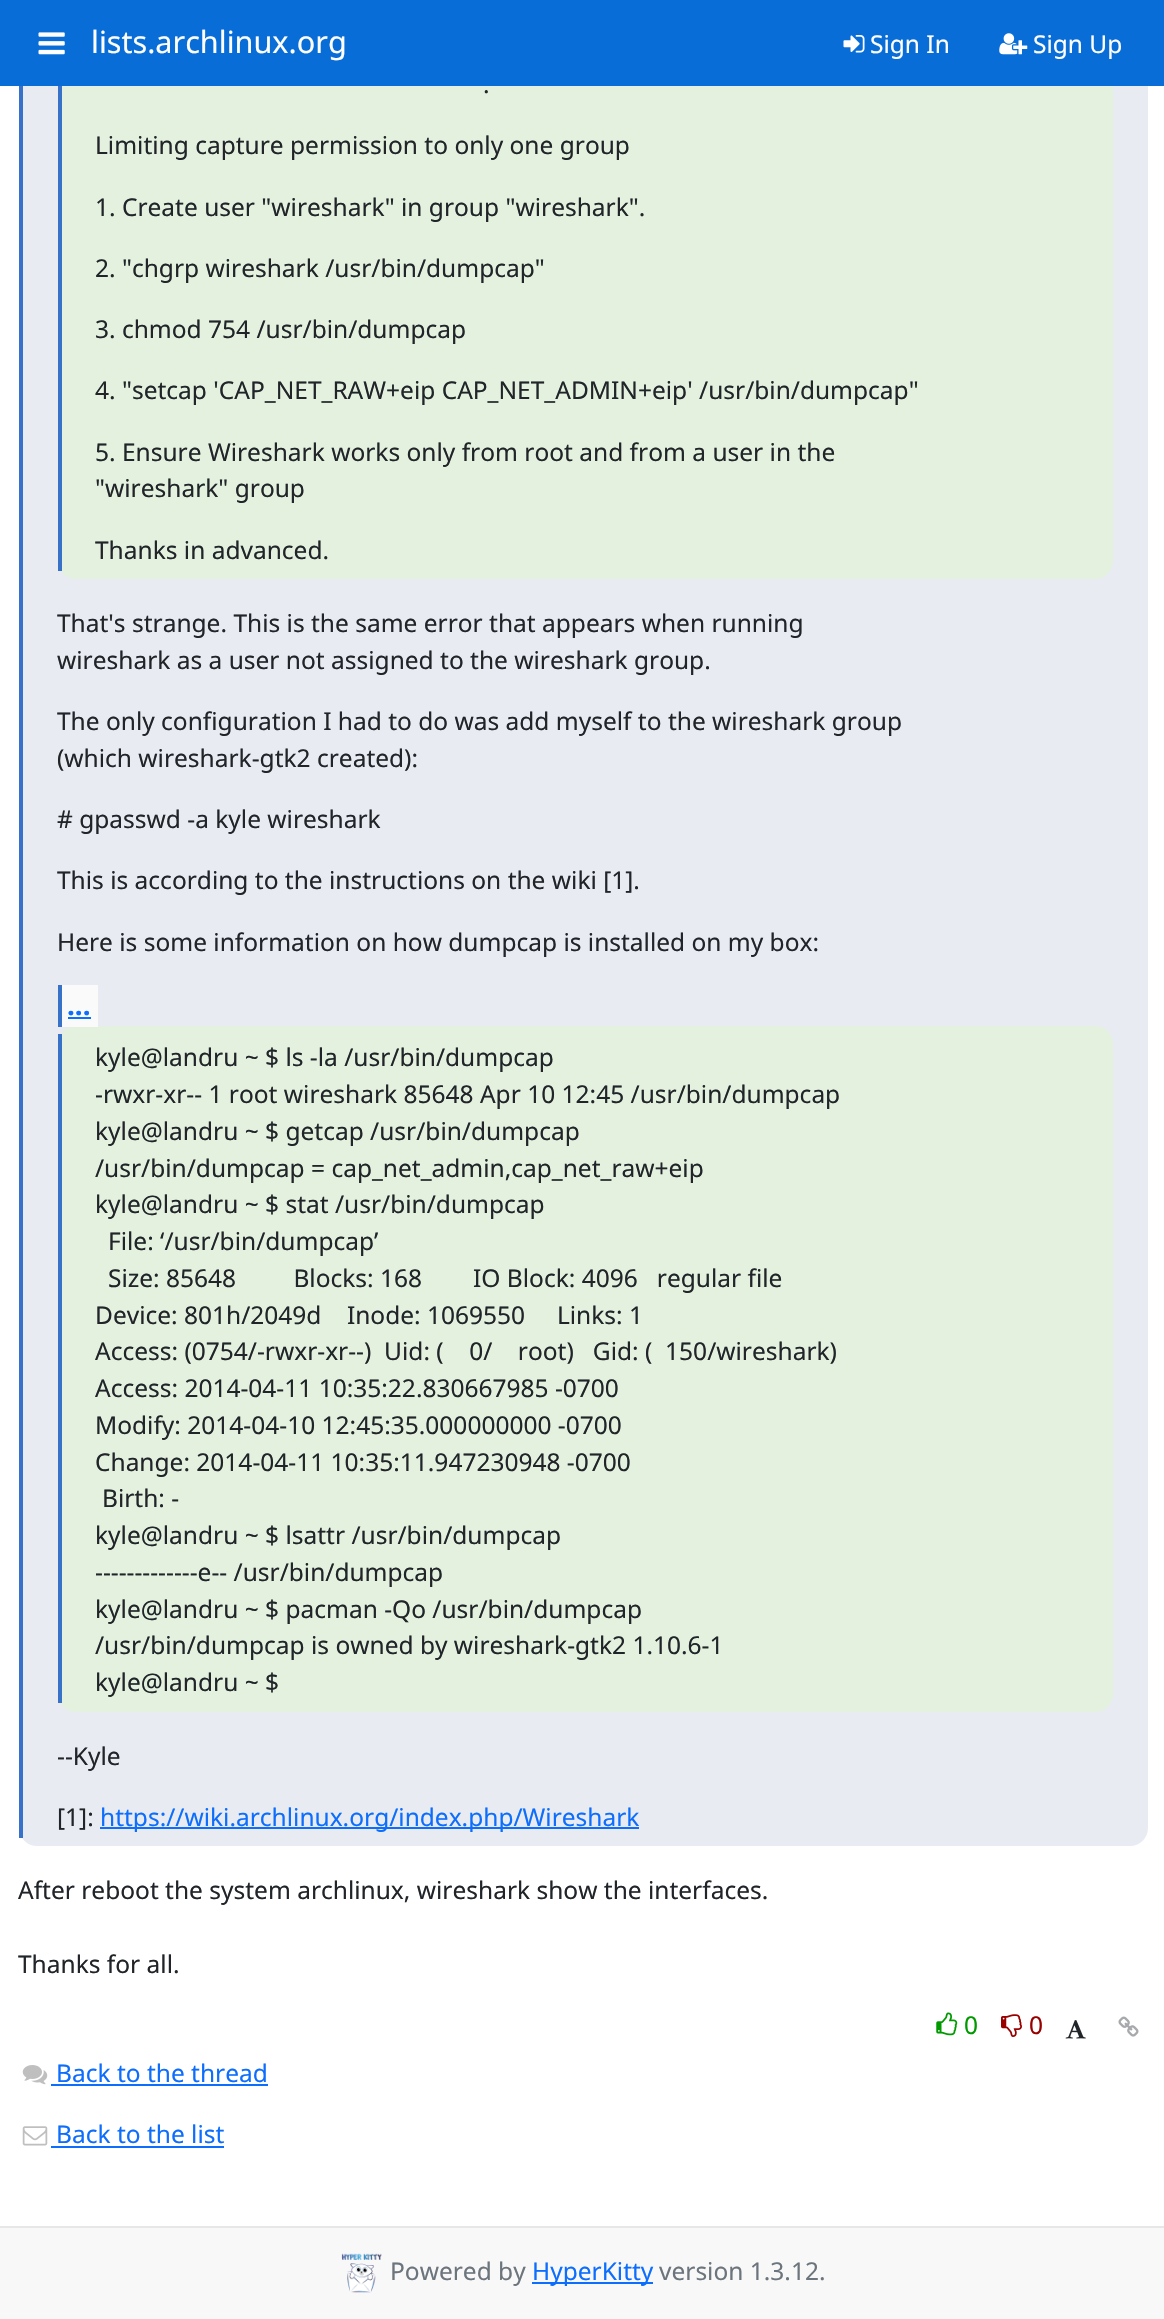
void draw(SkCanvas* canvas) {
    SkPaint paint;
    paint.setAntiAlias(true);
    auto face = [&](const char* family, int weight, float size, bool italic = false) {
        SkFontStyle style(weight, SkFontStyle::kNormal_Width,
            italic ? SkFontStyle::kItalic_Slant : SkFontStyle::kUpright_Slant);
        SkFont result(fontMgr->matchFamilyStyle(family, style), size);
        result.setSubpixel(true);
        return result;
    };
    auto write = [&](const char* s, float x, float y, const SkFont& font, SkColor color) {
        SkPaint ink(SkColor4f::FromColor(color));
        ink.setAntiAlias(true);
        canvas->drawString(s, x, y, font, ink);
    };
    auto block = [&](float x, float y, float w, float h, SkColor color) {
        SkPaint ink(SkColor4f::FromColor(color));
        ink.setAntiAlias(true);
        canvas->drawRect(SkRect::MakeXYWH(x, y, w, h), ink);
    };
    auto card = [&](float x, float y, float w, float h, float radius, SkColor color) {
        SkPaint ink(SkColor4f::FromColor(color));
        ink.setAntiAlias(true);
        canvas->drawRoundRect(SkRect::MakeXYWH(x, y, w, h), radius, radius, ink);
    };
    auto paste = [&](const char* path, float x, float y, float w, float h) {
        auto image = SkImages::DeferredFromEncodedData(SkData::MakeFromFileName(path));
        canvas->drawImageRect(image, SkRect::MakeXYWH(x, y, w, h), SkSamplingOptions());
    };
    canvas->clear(SK_ColorWHITE);
    card(19, -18, 1129, 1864, 18, SkColorSetRGB(232, 236, 242));
    card(58, -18, 1055, 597, 18, SkColorSetRGB(228, 241, 223));
    block(0, 0, 1164, 86, SkColorSetRGB(8, 109, 215));
    paste("pic1.png", 38, 32, 27, 23);
    auto kFont1 = face("Noto Sans", 400, 30.6f);
    write("lists.archlinux.org", 91, 53, kFont1, SK_ColorWHITE);
    paste("pic2.png", 843, 35, 22, 18);
    auto kFont2 = face("Noto Sans", 400, 24.5f);
    write("Sign In", 870, 53, kFont2, SK_ColorWHITE);
    paste("pic3.png", 999, 33, 29, 22);
    write("Sign Up", 1033, 53, kFont2, SK_ColorWHITE);
    block(19, 86, 4, 1752, SkColorSetRGB(55, 113, 200));
    block(58, 86, 4, 485, SkColorSetRGB(55, 113, 200));
    write(".", 483, 93, kFont2, SkColorSetRGB(33, 37, 41));
    write("Limiting capture permission to only one group", 95, 154, kFont2, SkColorSetRGB(33, 37, 41));
    write("1. Create user \"wireshark\" in group \"wireshark\".", 95, 216, kFont2, SkColorSetRGB(33, 37, 41));
    write("2. \"chgrp wireshark /usr/bin/dumpcap\"", 95, 277, kFont2, SkColorSetRGB(33, 37, 41));
    write("3. chmod 754 /usr/bin/dumpcap", 95, 338, kFont2, SkColorSetRGB(33, 37, 41));
    write("4. \"setcap 'CAP_NET_RAW+eip CAP_NET_ADMIN+eip' /usr/bin/dumpcap\"", 95, 399, kFont2, SkColorSetRGB(33, 37, 41));
    write("5. Ensure Wireshark works only from root and from a user in the", 95, 461, kFont2, SkColorSetRGB(33, 37, 41));
    write("\"wireshark\" group", 95, 497, kFont2, SkColorSetRGB(33, 37, 41));
    write("Thanks in advanced.", 95, 559, kFont2, SkColorSetRGB(33, 37, 41));
    write("That's strange. This is the same error that appears when running", 57, 632, kFont2, SkColorSetRGB(33, 37, 41));
    write("wireshark as a user not assigned to the wireshark group.", 57, 669, kFont2, SkColorSetRGB(33, 37, 41));
    write("The only configuration I had to do was add myself to the wireshark group", 57, 730, kFont2, SkColorSetRGB(33, 37, 41));
    write("(which wireshark-gtk2 created):", 57, 767, kFont2, SkColorSetRGB(33, 37, 41));
    write("# gpasswd -a kyle wireshark", 57, 828, kFont2, SkColorSetRGB(33, 37, 41));
    write("This is according to the instructions on the wiki [1].", 57, 889, kFont2, SkColorSetRGB(33, 37, 41));
    write("Here is some information on how dumpcap is installed on my box:", 57, 951, kFont2, SkColorSetRGB(33, 37, 41));
    card(58, 1026, 1055, 686, 18, SkColorSetRGB(228, 241, 223));
    block(62, 985, 36, 42, SkColorSetRGB(250, 250, 250));
    auto kFont3 = face("Noto Sans", 700, 28);
    write("...", 67, 1015, kFont3, SkColorSetRGB(13, 110, 253));
    block(58, 985, 4, 42, SkColorSetRGB(55, 113, 200));
    block(68, 1017, 23, 2, SkColorSetRGB(13, 110, 253));
    block(58, 1034, 4, 669, SkColorSetRGB(55, 113, 200));
    write("kyle@landru ~ $ ls -la /usr/bin/dumpcap", 95, 1066, kFont2, SkColorSetRGB(33, 37, 41));
    write("-rwxr-xr-- 1 root wireshark 85648 Apr 10 12:45 /usr/bin/dumpcap", 95, 1103, kFont2, SkColorSetRGB(33, 37, 41));
    write("kyle@landru ~ $ getcap /usr/bin/dumpcap", 95, 1140, kFont2, SkColorSetRGB(33, 37, 41));
    write("/usr/bin/dumpcap = cap_net_admin,cap_net_raw+eip", 95, 1177, kFont2, SkColorSetRGB(33, 37, 41));
    write("kyle@landru ~ $ stat /usr/bin/dumpcap", 95, 1213, kFont2, SkColorSetRGB(33, 37, 41));
    write("File: ‘/usr/bin/dumpcap’", 108, 1250, kFont2, SkColorSetRGB(33, 37, 41));
    write("Size: 85648         Blocks: 168        IO Block: 4096   regular file", 108, 1287, kFont2, SkColorSetRGB(33, 37, 41));
    write("Device: 801h/2049d    Inode: 1069550     Links: 1", 95, 1324, kFont2, SkColorSetRGB(33, 37, 41));
    write("Access: (0754/-rwxr-xr--)  Uid: (    0/    root)   Gid: (  150/wireshark)", 95, 1360, kFont2, SkColorSetRGB(33, 37, 41));
    write("Access: 2014-04-11 10:35:22.830667985 -0700", 95, 1397, kFont2, SkColorSetRGB(33, 37, 41));
    write("Modify: 2014-04-10 12:45:35.000000000 -0700", 95, 1434, kFont2, SkColorSetRGB(33, 37, 41));
    write("Change: 2014-04-11 10:35:11.947230948 -0700", 95, 1471, kFont2, SkColorSetRGB(33, 37, 41));
    write("Birth: -", 102, 1507, kFont2, SkColorSetRGB(33, 37, 41));
    write("kyle@landru ~ $ lsattr /usr/bin/dumpcap", 95, 1544, kFont2, SkColorSetRGB(33, 37, 41));
    write("-------------e-- /usr/bin/dumpcap", 95, 1581, kFont2, SkColorSetRGB(33, 37, 41));
    write("kyle@landru ~ $ pacman -Qo /usr/bin/dumpcap", 95, 1618, kFont2, SkColorSetRGB(33, 37, 41));
    write("/usr/bin/dumpcap is owned by wireshark-gtk2 1.10.6-1", 95, 1654, kFont2, SkColorSetRGB(33, 37, 41));
    write("kyle@landru ~ $", 95, 1691, kFont2, SkColorSetRGB(33, 37, 41));
    write("--Kyle", 57, 1765, kFont2, SkColorSetRGB(33, 37, 41));
    write("[1]:", 57, 1826, kFont2, SkColorSetRGB(33, 37, 41));
    block(100, 1827, 539, 2, SkColorSetRGB(13, 110, 253));
    write("https://wiki.archlinux.org/index.php/Wireshark", 100, 1826, kFont2, SkColorSetRGB(13, 110, 253));
    write("After reboot the system archlinux, wireshark show the interfaces.", 18, 1899, kFont2, SkColorSetRGB(33, 37, 41));
    write("Thanks for all.", 18, 1973, kFont2, SkColorSetRGB(33, 37, 41));
    paste("pic4.png", 936, 2012, 22, 24);
    write("0", 964, 2034, kFont2, SkColorSetRGB(0, 153, 0));
    paste("pic5.png", 1001, 2014, 21, 23);
    write("0", 1029, 2034, kFont2, SkColorSetRGB(153, 0, 0));
    paste("pic6.png", 1065, 2020, 21, 19);
    paste("pic7.png", 1118, 2016, 21, 21);
    paste("pic8.png", 22, 2065, 26, 20);
    write("Back to the thread", 56, 2082, kFont2, SkColorSetRGB(13, 110, 253));
    block(51, 2084, 217, 2, SkColorSetRGB(13, 110, 253));
    paste("pic9.png", 22, 2126, 26, 20);
    write("Back to the list", 56, 2143, kFont2, SkColorSetRGB(13, 110, 253));
    block(51, 2146, 173, 2, SkColorSetRGB(13, 110, 253));
    block(0, 2228, 1164, 91, SkColorSetRGB(248, 248, 248));
    block(0, 2226, 1164, 2, SkColorSetRGB(231, 231, 231));
    paste("pic10.png", 341, 2253, 41, 40);
    write("Powered by", 390, 2280, kFont2, SkColorSetRGB(108, 117, 125));
    block(532, 2282, 121, 2, SkColorSetRGB(13, 110, 253));
    write("HyperKitty", 532, 2280, kFont2, SkColorSetRGB(13, 110, 253));
    write("version 1.3.12.", 659, 2280, kFont2, SkColorSetRGB(108, 117, 125));
}
